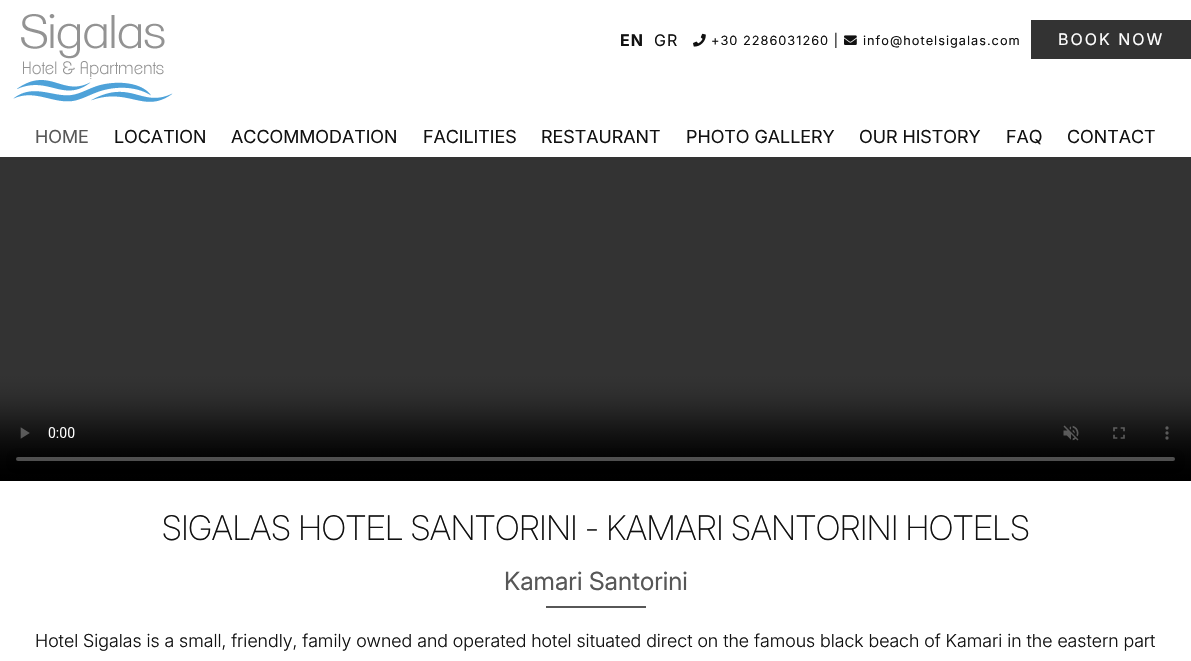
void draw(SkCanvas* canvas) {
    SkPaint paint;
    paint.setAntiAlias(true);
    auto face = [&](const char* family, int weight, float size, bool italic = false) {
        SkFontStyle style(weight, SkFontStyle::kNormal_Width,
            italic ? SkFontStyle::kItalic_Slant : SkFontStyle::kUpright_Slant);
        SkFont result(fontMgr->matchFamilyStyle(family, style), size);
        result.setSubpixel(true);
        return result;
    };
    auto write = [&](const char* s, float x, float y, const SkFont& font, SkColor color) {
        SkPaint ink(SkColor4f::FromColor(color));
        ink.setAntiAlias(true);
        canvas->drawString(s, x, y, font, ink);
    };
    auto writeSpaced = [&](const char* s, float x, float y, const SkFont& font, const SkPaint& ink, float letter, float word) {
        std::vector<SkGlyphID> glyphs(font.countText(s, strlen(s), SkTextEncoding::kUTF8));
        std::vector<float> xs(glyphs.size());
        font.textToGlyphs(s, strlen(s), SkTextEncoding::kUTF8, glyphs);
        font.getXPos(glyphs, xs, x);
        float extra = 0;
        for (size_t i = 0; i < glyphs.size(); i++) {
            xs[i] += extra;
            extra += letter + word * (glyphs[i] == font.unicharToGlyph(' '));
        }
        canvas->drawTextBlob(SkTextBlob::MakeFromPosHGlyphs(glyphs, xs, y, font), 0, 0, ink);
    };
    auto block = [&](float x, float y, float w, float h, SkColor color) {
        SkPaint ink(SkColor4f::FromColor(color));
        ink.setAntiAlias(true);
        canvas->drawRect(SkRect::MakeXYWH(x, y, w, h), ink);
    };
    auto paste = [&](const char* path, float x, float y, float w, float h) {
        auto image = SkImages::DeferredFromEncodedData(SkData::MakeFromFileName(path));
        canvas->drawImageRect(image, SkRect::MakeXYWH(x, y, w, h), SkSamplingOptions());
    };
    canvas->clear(SK_ColorWHITE);
    paste("pic1.png", 13, 14, 160, 88);
    auto kFont1 = face("Inter", 700, 16);
    paint.setColor(SkColorSetRGB(17, 17, 17));
    writeSpaced("EN", 620, 46, kFont1, paint, 1, 0);
    auto kFont2 = face("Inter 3", 400, 16);
    writeSpaced("GR", 654, 46, kFont2, paint, 1, 0);
    paste("pic2.png", 693, 33, 13, 14);
    auto kFont3 = face("Inter 3", 400, 12.75f);
    writeSpaced("+30 2286031260 |", 711, 45, kFont3, paint, 1, 0);
    paste("pic3.png", 844, 35, 13, 10);
    writeSpaced("info@hotelsigalas.com", 863, 45, kFont3, paint, 1, 0);
    block(1031, 20, 160, 39, SkColorSetRGB(51, 51, 51));
    paint.setColor(SK_ColorWHITE);
    writeSpaced("BOOK NOW", 1058, 45, kFont2, paint, 2, 0);
    auto kFont4 = face("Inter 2", 400, 18);
    write("HOME", 35, 143, kFont4, SkColorSetRGB(87, 87, 87));
    write("LOCATION", 114, 143, kFont4, SkColorSetRGB(17, 17, 17));
    write("ACCOMMODATION", 231, 143, kFont4, SkColorSetRGB(17, 17, 17));
    write("FACILITIES", 423, 143, kFont4, SkColorSetRGB(17, 17, 17));
    write("RESTAURANT", 541, 143, kFont4, SkColorSetRGB(17, 17, 17));
    write("PHOTO GALLERY", 686, 143, kFont4, SkColorSetRGB(17, 17, 17));
    write("OUR HISTORY", 859, 143, kFont4, SkColorSetRGB(17, 17, 17));
    write("FAQ", 1006, 143, kFont4, SkColorSetRGB(17, 17, 17));
    write("CONTACT", 1067, 143, kFont4, SkColorSetRGB(17, 17, 17));
    paste("pic4.png", 0, 157, 1191, 324);
    auto kFont5 = face("Inter", 200, 34);
    write("SIGALAS HOTEL SANTORINI - KAMARI SANTORINI HOTELS", 162, 540, kFont5, SkColorSetRGB(17, 17, 17));
    auto kFont6 = face("Inter", 400, 25);
    write("Kamari Santorini", 504, 590, kFont6, SkColorSetRGB(87, 87, 87));
    block(546, 606, 100, 2, SkColorSetRGB(87, 87, 87));
    auto kFont7 = face("Inter", 300, 18);
    write("Hotel Sigalas is a small, friendly, family owned and operated hotel situated direct on the famous black beach of Kamari in the eastern part", 35, 647, kFont7, SkColorSetRGB(17, 17, 17));
}
